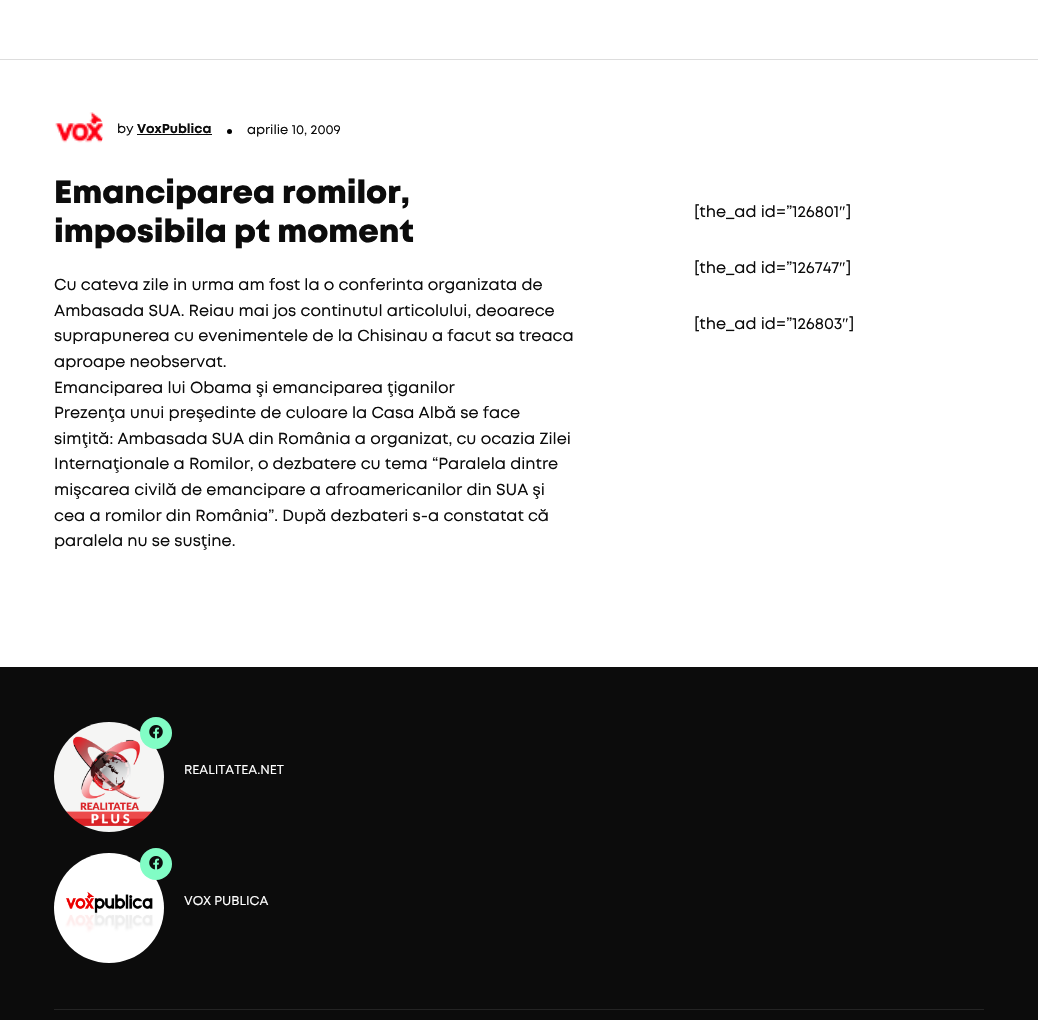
void draw(SkCanvas* canvas) {
    SkPaint paint;
    paint.setAntiAlias(true);
    auto face = [&](const char* family, int weight, float size, bool italic = false) {
        SkFontStyle style(weight, SkFontStyle::kNormal_Width,
            italic ? SkFontStyle::kItalic_Slant : SkFontStyle::kUpright_Slant);
        SkFont result(fontMgr->matchFamilyStyle(family, style), size);
        result.setSubpixel(true);
        return result;
    };
    auto write = [&](const char* s, float x, float y, const SkFont& font, SkColor color) {
        SkPaint ink(SkColor4f::FromColor(color));
        ink.setAntiAlias(true);
        canvas->drawString(s, x, y, font, ink);
    };
    auto block = [&](float x, float y, float w, float h, SkColor color) {
        SkPaint ink(SkColor4f::FromColor(color));
        ink.setAntiAlias(true);
        canvas->drawRect(SkRect::MakeXYWH(x, y, w, h), ink);
    };
    auto paste = [&](const char* path, float x, float y, float w, float h) {
        auto image = SkImages::DeferredFromEncodedData(SkData::MakeFromFileName(path));
        canvas->drawImageRect(image, SkRect::MakeXYWH(x, y, w, h), SkSamplingOptions());
    };
    canvas->clear(SK_ColorWHITE);
    block(0, 59, 1038, 1, SkColorSetRGB(221, 221, 221));
    paste("pic1.png", 55, 112, 48, 31);
    auto kFont1 = face("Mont", 400, 13);
    write("by", 117, 133, kFont1, SkColorSetRGB(12, 12, 12));
    auto kFont2 = face("Mont", 700, 13);
    write("VoxPublica", 137, 133, kFont2, SkColorSetRGB(12, 12, 12));
    block(137, 134, 75, 1, SkColorSetRGB(12, 12, 12));
    paint.setColor(SK_ColorBLACK);
    canvas->drawCircle(229.5f, 131.5f, 2.5f, paint);
    write("aprilie 10, 2009", 247, 134, kFont1, SkColorSetRGB(12, 12, 12));
    auto kFont3 = face("Mont", 900, 32);
    write("Emanciparea romilor,", 54, 203, kFont3, SkColorSetRGB(12, 12, 12));
    write("imposibila pt moment", 54, 242, kFont3, SkColorSetRGB(12, 12, 12));
    auto kFont4 = face("Mont", 400, 16);
    write("Cu cateva zile in urma am fost la o conferinta organizata de", 54, 290, kFont4, SkColorSetRGB(12, 12, 12));
    write("Ambasada SUA. Reiau mai jos continutul articolului, deoarece", 54, 316, kFont4, SkColorSetRGB(12, 12, 12));
    write("suprapunerea cu evenimentele de la Chisinau a facut sa treaca", 54, 341, kFont4, SkColorSetRGB(12, 12, 12));
    write("aproape neobservat.", 54, 367, kFont4, SkColorSetRGB(12, 12, 12));
    write("Emanciparea lui Obama şi emanciparea ţiganilor", 54, 393, kFont4, SkColorSetRGB(12, 12, 12));
    write("Prezenţa unui preşedinte de culoare la Casa Albă se face", 54, 418, kFont4, SkColorSetRGB(12, 12, 12));
    write("simţită: Ambasada SUA din România a organizat, cu ocazia Zilei", 54, 444, kFont4, SkColorSetRGB(12, 12, 12));
    write("Internaţionale a Romilor, o dezbatere cu tema “Paralela dintre", 54, 469, kFont4, SkColorSetRGB(12, 12, 12));
    write("mişcarea civilă de emancipare a afroamericanilor din SUA şi", 54, 495, kFont4, SkColorSetRGB(12, 12, 12));
    write("cea a romilor din România”. După dezbateri s-a constatat că", 54, 521, kFont4, SkColorSetRGB(12, 12, 12));
    write("paralela nu se susţine.", 54, 546, kFont4, SkColorSetRGB(12, 12, 12));
    write("[the_ad id=”126801", 694, 217, kFont4, SkColorSetRGB(12, 12, 12));
    auto kFont5 = face("Liberation Serif", 400, 16);
    write("″", 839, 217, kFont5, SkColorSetRGB(12, 12, 12));
    write("]", 846, 217, kFont4, SkColorSetRGB(12, 12, 12));
    write("[the_ad id=”126747", 694, 273, kFont4, SkColorSetRGB(12, 12, 12));
    write("″", 839, 273, kFont5, SkColorSetRGB(12, 12, 12));
    write("]", 846, 273, kFont4, SkColorSetRGB(12, 12, 12));
    write("[the_ad id=”126803", 694, 329, kFont4, SkColorSetRGB(12, 12, 12));
    write("″", 842, 329, kFont5, SkColorSetRGB(12, 12, 12));
    write("]", 849, 329, kFont4, SkColorSetRGB(12, 12, 12));
    block(0, 667, 1038, 353, SkColorSetRGB(12, 12, 12));
    block(54, 1009, 930, 1, SkColorSetRGB(36, 36, 36));
    paste("pic3.png", 54, 722, 110, 110);
    paint.setColor(SkColorSetRGB(129, 253, 197));
    canvas->drawCircle(156, 733, 16, paint);
    paste("pic2.png", 149, 725, 14, 14);
    auto kFont6 = face("Mont", 400, 12.75f);
    write("REALITATEA.NET", 184, 774, kFont6, SK_ColorWHITE);
    paste("pic4.png", 54, 853, 110, 110);
    canvas->drawCircle(156, 864, 16, paint);
    paste("pic2.png", 149, 856, 14, 14);
    write("VOX PUBLICA", 184, 905, kFont6, SK_ColorWHITE);
}
